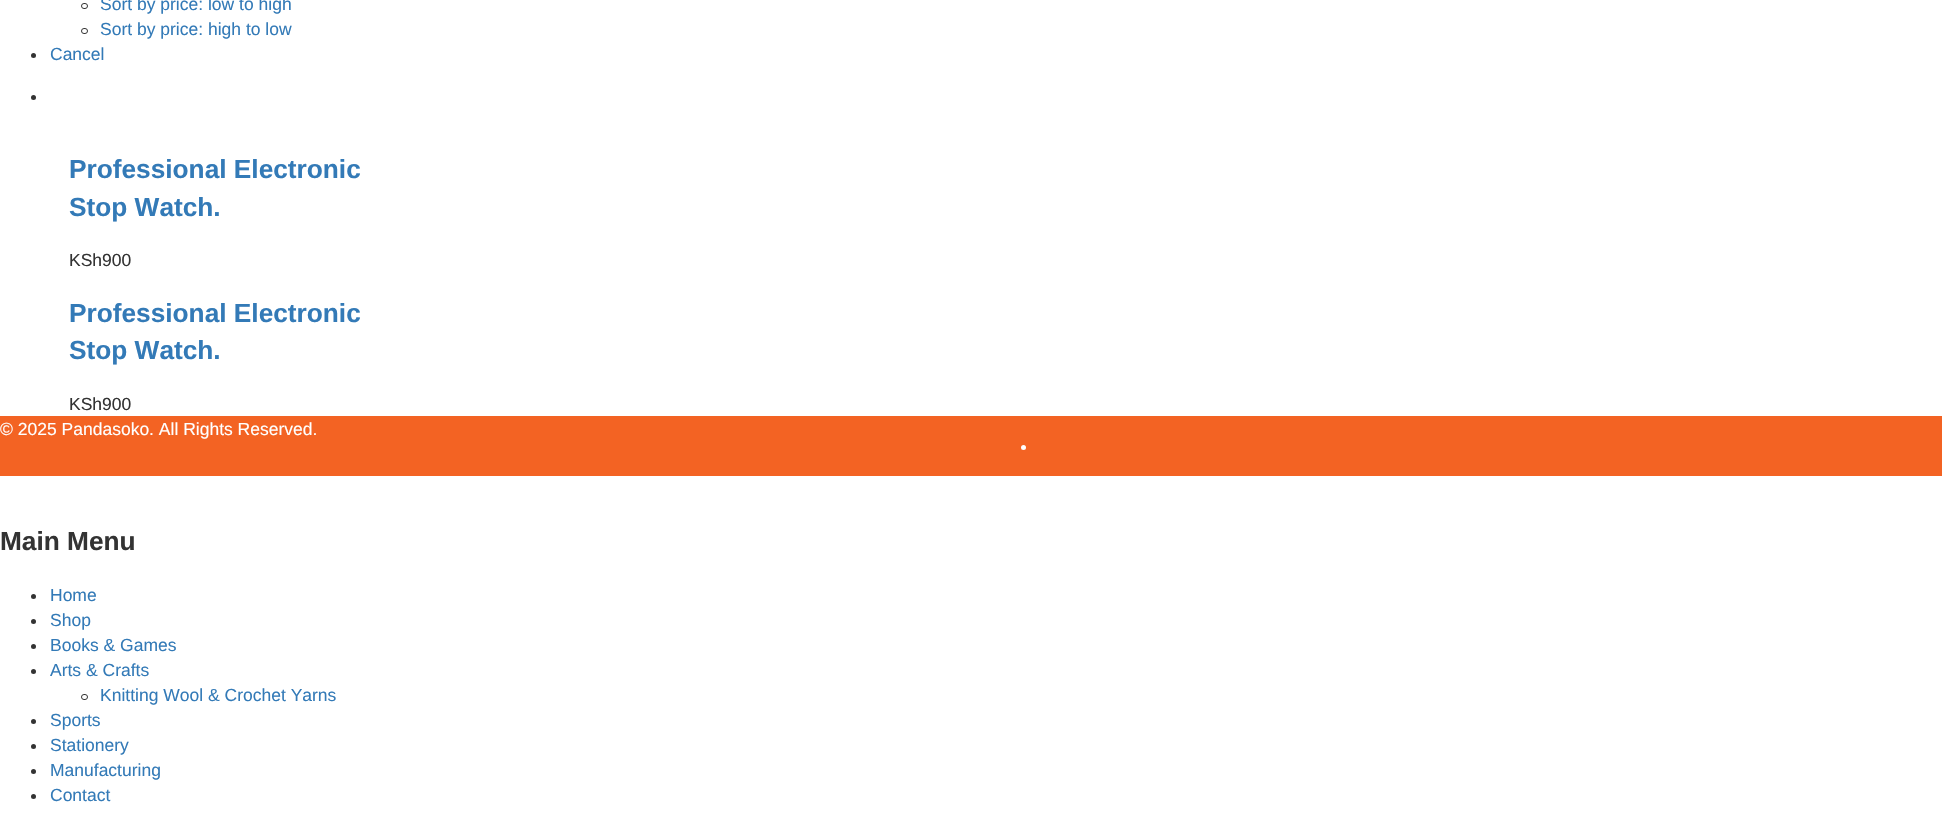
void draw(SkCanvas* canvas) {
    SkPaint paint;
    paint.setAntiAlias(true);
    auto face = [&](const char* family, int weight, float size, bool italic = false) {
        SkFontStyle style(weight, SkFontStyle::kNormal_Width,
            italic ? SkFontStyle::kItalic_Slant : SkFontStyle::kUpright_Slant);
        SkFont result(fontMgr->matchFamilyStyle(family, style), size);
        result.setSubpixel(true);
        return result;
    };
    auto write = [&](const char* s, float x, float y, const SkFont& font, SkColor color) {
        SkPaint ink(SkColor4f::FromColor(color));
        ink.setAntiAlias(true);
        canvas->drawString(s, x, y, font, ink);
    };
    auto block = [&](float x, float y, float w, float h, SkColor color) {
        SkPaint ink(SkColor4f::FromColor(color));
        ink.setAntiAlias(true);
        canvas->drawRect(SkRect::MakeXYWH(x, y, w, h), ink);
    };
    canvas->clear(SK_ColorWHITE);
    paint.setStyle(SkPaint::kStroke_Style);
    paint.setStrokeWidth(1);
    paint.setColor(SkColorSetRGB(51, 51, 51));
    canvas->drawRoundRect(SkRect::MakeXYWH(81.5f, 3.5f, 6, 5), 2.5f, 2.5f, paint);
    auto kFont1 = face("Liberation Sans", 400, 17.5f);
    write("Sort by price: low to high", 100, 10, kFont1, SkColorSetRGB(51, 122, 183));
    canvas->drawRoundRect(SkRect::MakeXYWH(81.5f, 28.5f, 6, 5), 2.5f, 2.5f, paint);
    write("Sort by price: high to low", 100, 35, kFont1, SkColorSetRGB(51, 122, 183));
    paint.setStyle(SkPaint::kFill_Style);
    canvas->drawCircle(33.5f, 55.5f, 2.5f, paint);
    write("Cancel", 50, 60, kFont1, SkColorSetRGB(51, 122, 183));
    canvas->drawCircle(33.5f, 97.5f, 2.5f, paint);
    auto kFont2 = face("Liberation Sans", 700, 26.25f);
    write("Professional Electronic", 69, 178, kFont2, SkColorSetRGB(51, 122, 183));
    write("Stop Watch.", 69, 216, kFont2, SkColorSetRGB(51, 122, 183));
    write("KSh900", 69, 266, kFont1, SkColorSetRGB(51, 51, 51));
    write("Professional Electronic", 69, 322, kFont2, SkColorSetRGB(51, 122, 183));
    write("Stop Watch.", 69, 359, kFont2, SkColorSetRGB(51, 122, 183));
    write("KSh900", 69, 410, kFont1, SkColorSetRGB(51, 51, 51));
    block(0, 416, 1942, 60, SkColorSetRGB(243, 99, 35));
    write("© 2025 Pandasoko. All Rights Reserved.", 0, 435, kFont1, SK_ColorWHITE);
    paint.setColor(SK_ColorWHITE);
    canvas->drawCircle(1023.5f, 447.5f, 2.5f, paint);
    write("Main Menu", 0, 550, kFont2, SkColorSetRGB(51, 51, 51));
    paint.setColor(SkColorSetRGB(51, 51, 51));
    canvas->drawCircle(33.5f, 596.5f, 2.5f, paint);
    write("Home", 50, 601, kFont1, SkColorSetRGB(51, 122, 183));
    canvas->drawCircle(33.5f, 621.5f, 2.5f, paint);
    write("Shop", 50, 626, kFont1, SkColorSetRGB(51, 122, 183));
    canvas->drawCircle(33.5f, 646.5f, 2.5f, paint);
    write("Books & Games", 50, 651, kFont1, SkColorSetRGB(51, 122, 183));
    canvas->drawCircle(33.5f, 671.5f, 2.5f, paint);
    write("Arts & Crafts", 50, 676, kFont1, SkColorSetRGB(51, 122, 183));
    paint.setStyle(SkPaint::kStroke_Style);
    canvas->drawRoundRect(SkRect::MakeXYWH(81.5f, 694.5f, 6, 5), 2.5f, 2.5f, paint);
    write("Knitting Wool & Crochet Yarns", 100, 701, kFont1, SkColorSetRGB(51, 122, 183));
    paint.setStyle(SkPaint::kFill_Style);
    canvas->drawCircle(33.5f, 721.5f, 2.5f, paint);
    write("Sports", 50, 726, kFont1, SkColorSetRGB(51, 122, 183));
    canvas->drawCircle(33.5f, 746.5f, 2.5f, paint);
    write("Stationery", 50, 751, kFont1, SkColorSetRGB(51, 122, 183));
    canvas->drawCircle(33.5f, 771.5f, 2.5f, paint);
    write("Manufacturing", 50, 776, kFont1, SkColorSetRGB(51, 122, 183));
    canvas->drawCircle(33.5f, 796.5f, 2.5f, paint);
    write("Contact", 50, 801, kFont1, SkColorSetRGB(51, 122, 183));
}
